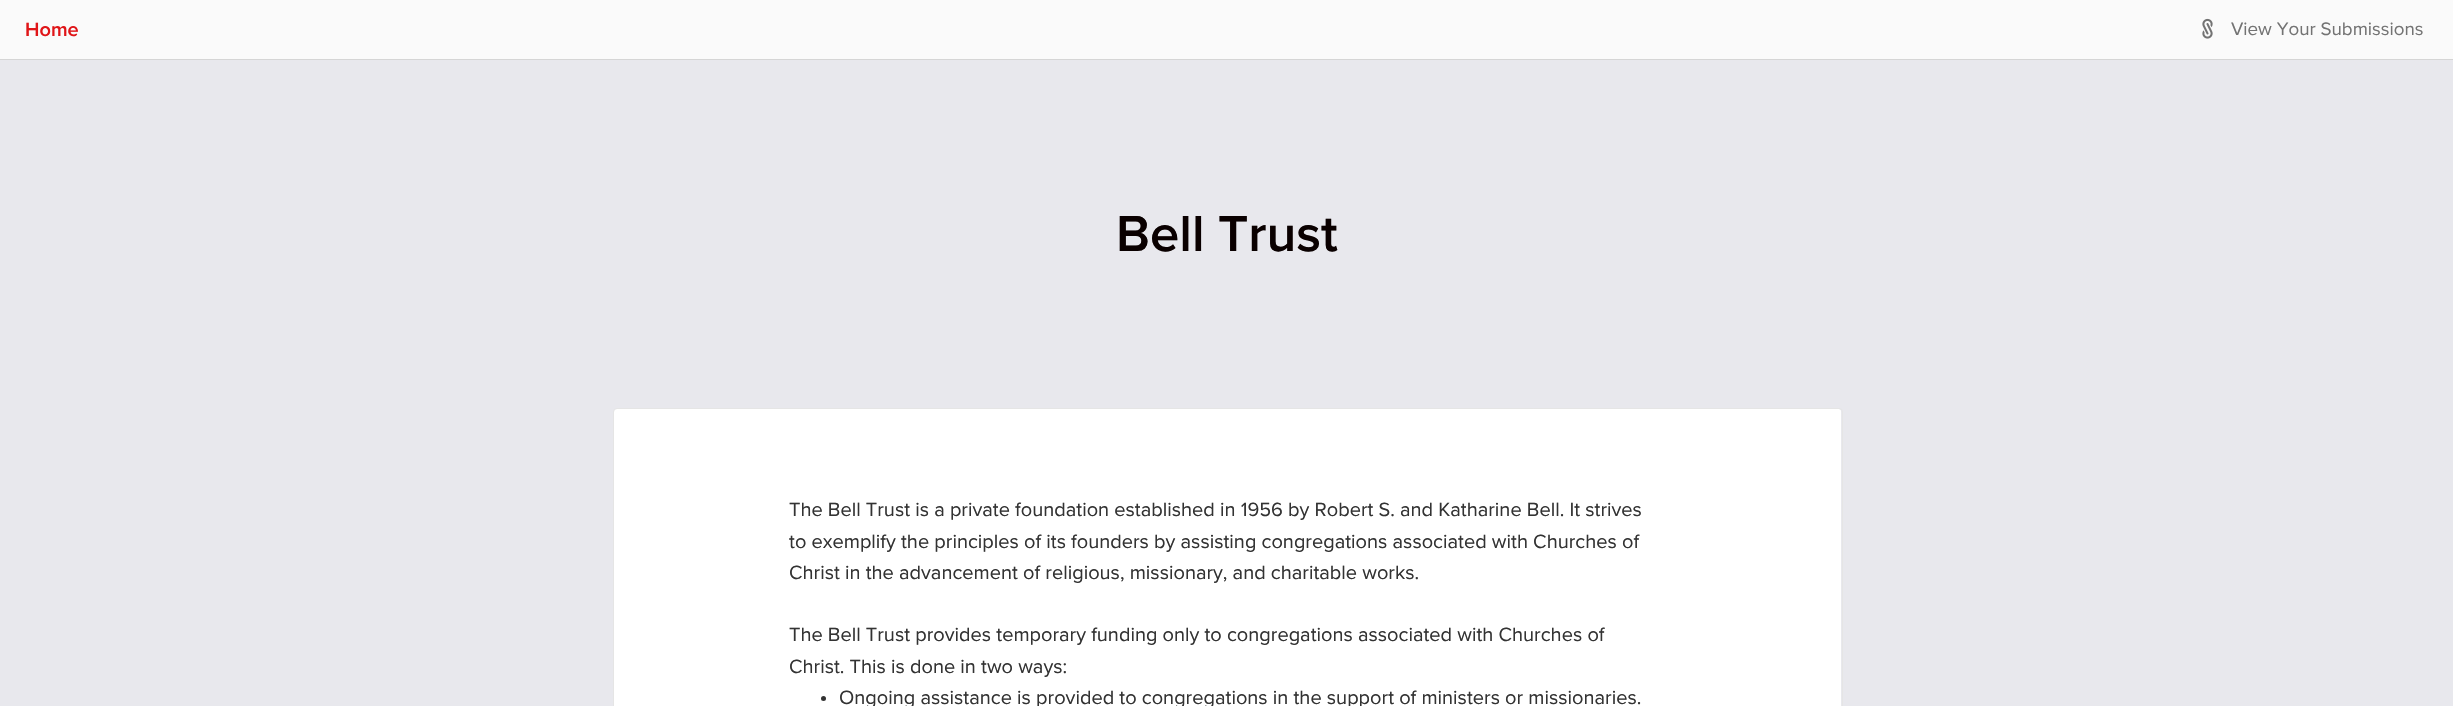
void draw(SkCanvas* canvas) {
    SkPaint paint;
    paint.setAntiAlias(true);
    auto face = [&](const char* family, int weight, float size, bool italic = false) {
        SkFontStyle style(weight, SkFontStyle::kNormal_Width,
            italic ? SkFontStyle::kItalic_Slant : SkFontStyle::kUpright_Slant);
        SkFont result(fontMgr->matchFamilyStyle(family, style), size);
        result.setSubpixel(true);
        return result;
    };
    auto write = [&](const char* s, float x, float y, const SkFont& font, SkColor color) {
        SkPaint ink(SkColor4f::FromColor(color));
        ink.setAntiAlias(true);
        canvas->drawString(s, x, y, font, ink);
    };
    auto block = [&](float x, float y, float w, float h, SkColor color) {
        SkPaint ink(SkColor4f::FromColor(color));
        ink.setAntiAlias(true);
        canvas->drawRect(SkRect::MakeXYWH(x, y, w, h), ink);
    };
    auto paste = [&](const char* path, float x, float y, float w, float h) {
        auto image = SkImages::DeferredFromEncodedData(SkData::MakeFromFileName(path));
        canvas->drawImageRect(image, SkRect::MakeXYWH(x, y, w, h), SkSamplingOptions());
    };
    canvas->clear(SkColorSetRGB(232, 232, 237));
    block(0, 0, 2453, 59, SkColorSetRGB(250, 250, 250));
    block(0, 59, 2453, 1, SkColorSetRGB(213, 213, 213));
    auto kFont1 = face("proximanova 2", 400, 20);
    write("Home", 25, 36, kFont1, SkColorSetRGB(224, 21, 24));
    paste("pic1.png", 2202, 18, 11, 21);
    auto kFont2 = face("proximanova", 400, 18.75f);
    write("View Your Submissions", 2231, 35, kFont2, SkColorSetRGB(115, 115, 115));
    auto kFont3 = face("proximanova 2", 400, 52.5f);
    write("Bell Trust", 1116, 251, kFont3, SkColorSetRGB(10, 0, 0));
    paint.setColor(SK_ColorWHITE);
    canvas->drawPath(SkPathBuilder().moveTo(616, 409).lineTo(1839, 409).cubicTo(1840, 409, 1841, 410, 1841, 411).lineTo(1841, 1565).cubicTo(1841, 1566, 1840, 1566, 1839, 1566).lineTo(616, 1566).cubicTo(615, 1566, 614, 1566, 614, 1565).lineTo(614, 411).cubicTo(614, 410, 615, 409, 616, 409).close().detach(), paint);
    paint.setStyle(SkPaint::kStroke_Style);
    paint.setStrokeWidth(1);
    paint.setColor(SkColorSetRGB(229, 229, 229));
    canvas->drawRoundRect(SkRect::MakeXYWH(613.5f, 408.5f, 1229, 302), 3.5f, 3.5f, paint);
    auto kFont4 = face("proximanova", 400, 20);
    write("The Bell Trust is a private foundation established in 1956 by Robert S. and Katharine Bell. It strives", 789, 516, kFont4, SkColorSetRGB(51, 51, 51));
    write("to exemplify the principles of its founders by assisting congregations associated with Churches of", 789, 548, kFont4, SkColorSetRGB(51, 51, 51));
    write("Christ in the advancement of religious, missionary, and charitable works.", 789, 579, kFont4, SkColorSetRGB(51, 51, 51));
    write("The Bell Trust provides temporary funding only to congregations associated with Churches of", 789, 641, kFont4, SkColorSetRGB(51, 51, 51));
    write("Christ. This is done in two ways:", 789, 673, kFont4, SkColorSetRGB(51, 51, 51));
    paint.setStyle(SkPaint::kFill_Style);
    paint.setColor(SkColorSetRGB(51, 51, 51));
    canvas->drawCircle(823.5f, 698.5f, 2.5f, paint);
    write("Ongoing assistance is provided to congregations in the support of ministers or missionaries.", 839, 704, kFont4, SkColorSetRGB(51, 51, 51));
}
